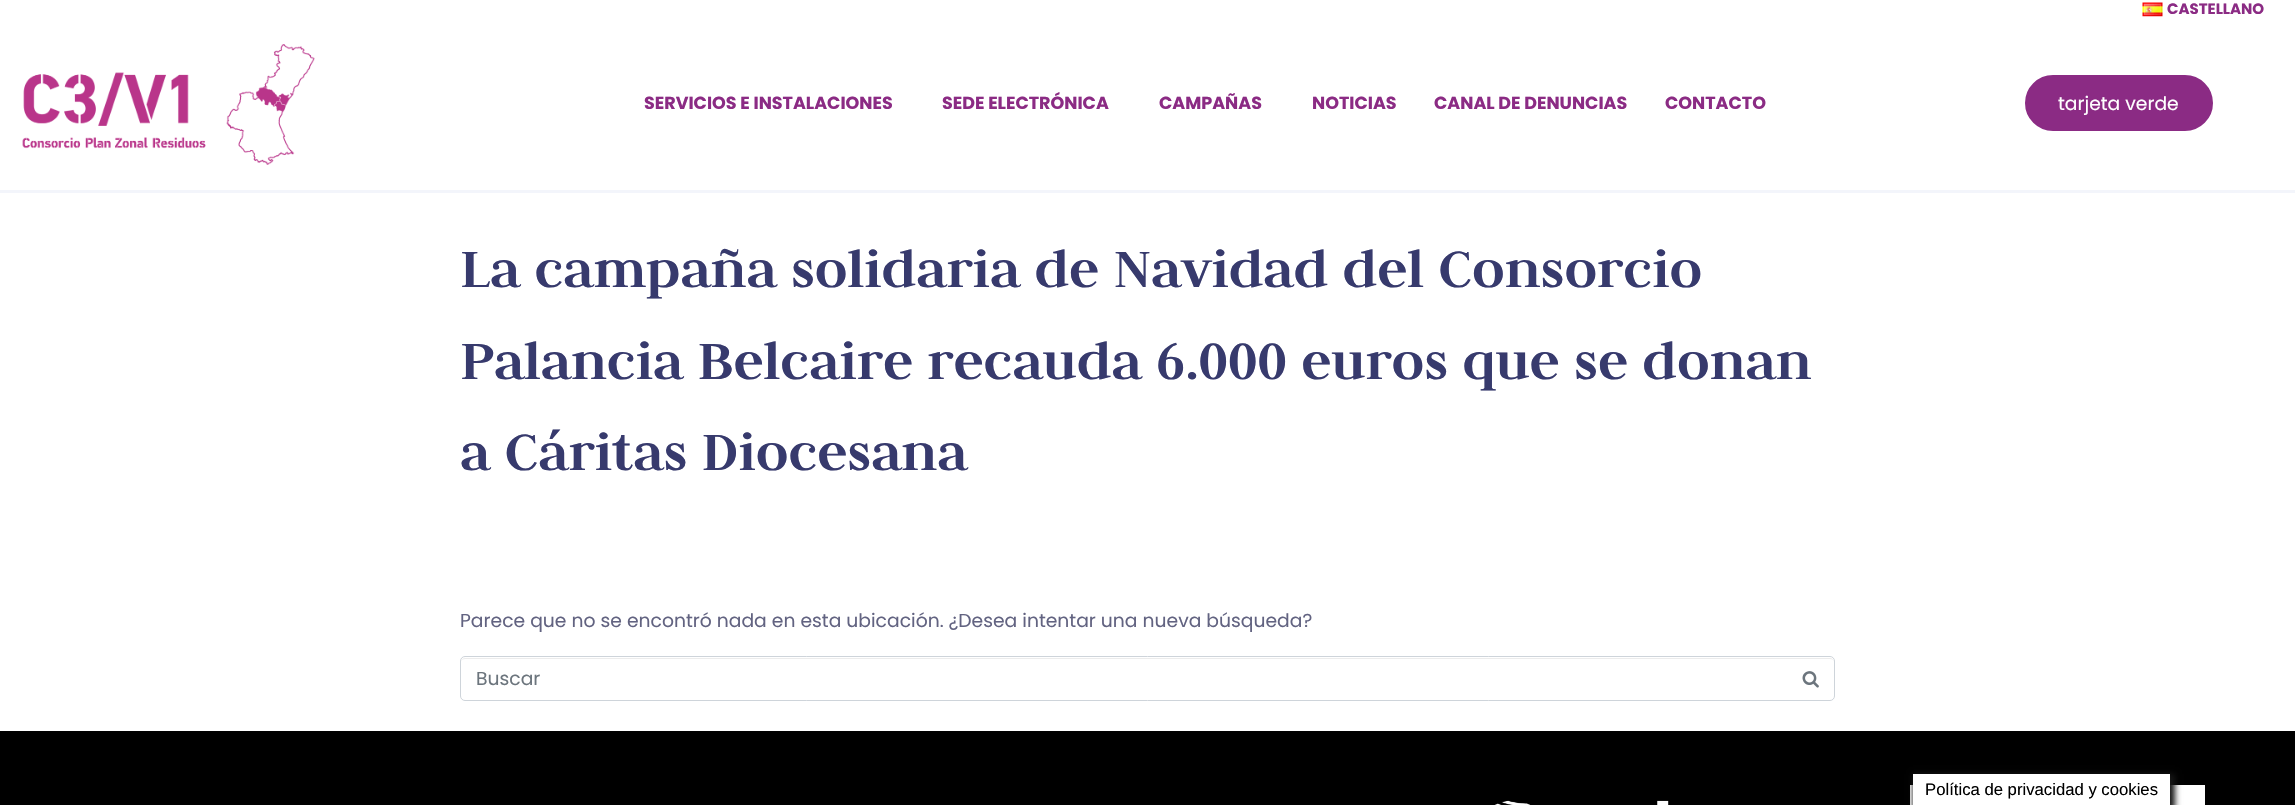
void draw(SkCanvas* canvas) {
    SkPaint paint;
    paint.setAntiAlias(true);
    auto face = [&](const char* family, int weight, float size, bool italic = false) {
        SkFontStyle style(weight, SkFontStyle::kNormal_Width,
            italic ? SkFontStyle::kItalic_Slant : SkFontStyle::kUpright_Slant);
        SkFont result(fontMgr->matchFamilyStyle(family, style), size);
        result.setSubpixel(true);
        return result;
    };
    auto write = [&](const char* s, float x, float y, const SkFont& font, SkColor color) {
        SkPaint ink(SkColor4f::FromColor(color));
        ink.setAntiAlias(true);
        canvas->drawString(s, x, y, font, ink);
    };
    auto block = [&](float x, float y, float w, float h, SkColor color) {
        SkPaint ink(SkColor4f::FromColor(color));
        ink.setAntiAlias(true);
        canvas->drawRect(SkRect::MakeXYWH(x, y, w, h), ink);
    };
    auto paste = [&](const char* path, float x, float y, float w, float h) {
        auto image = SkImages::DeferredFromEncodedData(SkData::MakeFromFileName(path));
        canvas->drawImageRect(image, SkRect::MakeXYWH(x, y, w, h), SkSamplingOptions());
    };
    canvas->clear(SK_ColorWHITE);
    paste("pic1.png", 2142, 2, 21, 15);
    auto kFont1 = face("Poppins", 700, 15);
    write("CASTELLANO", 2167, 14, kFont1, SkColorSetRGB(139, 43, 132));
    block(0, 190, 2295, 3, SkColorSetRGB(243, 245, 251));
    paste("pic2.png", 22, 44, 293, 121);
    auto kFont2 = face("Poppins", 700, 17.5f);
    write("SERVICIOS E INSTALACIONES", 644, 109, kFont2, SkColorSetRGB(139, 43, 132));
    write("SEDE ELECTRÓNICA", 942, 109, kFont2, SkColorSetRGB(139, 43, 132));
    write("CAMPAÑAS", 1159, 109, kFont2, SkColorSetRGB(139, 43, 132));
    write("NOTICIAS", 1312, 109, kFont2, SkColorSetRGB(139, 43, 132));
    write("CANAL DE DENUNCIAS", 1434, 109, kFont2, SkColorSetRGB(139, 43, 132));
    write("CONTACTO", 1665, 109, kFont2, SkColorSetRGB(139, 43, 132));
    paint.setColor(SkColorSetRGB(139, 43, 132));
    canvas->drawRoundRect(SkRect::MakeXYWH(2027, 77, 184, 52), 26, 26, paint);
    paint.setStyle(SkPaint::kStroke_Style);
    paint.setStrokeWidth(4);
    canvas->drawRoundRect(SkRect::MakeXYWH(2027, 77, 184, 52), 26, 26, paint);
    auto kFont3 = face("Poppins", 400, 18.75f);
    write("tarjeta verde", 2058, 110, kFont3, SK_ColorWHITE);
    auto kFont4 = face("Judson", 700, 60);
    write("La campaña solidaria de Navidad del Consorcio", 460, 287, kFont4, SkColorSetRGB(55, 58, 109));
    write("Palancia Belcaire recauda 6.000 euros que se donan", 460, 379, kFont4, SkColorSetRGB(55, 58, 109));
    write("a Cáritas Diocesana", 460, 470, kFont4, SkColorSetRGB(55, 58, 109));
    write("Parece que no se encontró nada en esta ubicación. ¿Desea intentar una nueva búsqueda?", 460, 627, kFont3, SkColorSetRGB(98, 99, 129));
    paint.setStyle(SkPaint::kFill_Style);
    paint.setColor(SkColorSetRGB(236, 236, 236));
    canvas->drawPath(SkPathBuilder().moveTo(465, 659).lineTo(1830, 659).cubicTo(1832, 659, 1834, 660, 1834, 662).cubicTo(1834, 660, 1832, 658, 1830, 658).lineTo(465, 658).cubicTo(463, 658, 461, 660, 461, 662).cubicTo(461, 660, 463, 659, 465, 659).close().detach(), paint);
    paint.setStyle(SkPaint::kStroke_Style);
    paint.setStrokeWidth(1);
    paint.setColor(SkColorSetRGB(206, 212, 218));
    canvas->drawRoundRect(SkRect::MakeXYWH(460.5f, 656.5f, 1374, 44), 4.5f, 4.5f, paint);
    write("Buscar", 476, 685, kFont3, SkColorSetRGB(108, 117, 125));
    paste("pic3.png", 1802, 671, 17, 17);
    block(0, 731, 2295, 74, SK_ColorBLACK);
    paste("pic4.png", 1494, 800, 175, 5);
    paste("pic5.png", 1910, 785, 295, 20);
    paint.setStyle(SkPaint::kFill_Style);
    paint.setColor(SkColorSetRGB(22, 22, 22));
    paint.setMaskFilter(SkMaskFilter::MakeBlur(kNormal_SkBlurStyle, 3));
    canvas->drawRect(SkRect::MakeXYWH(1913, 774, 262, 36), paint);
    paint.setMaskFilter(nullptr);
    block(1913, 774, 257, 31, SK_ColorWHITE);
    auto kFont5 = face("Liberation Sans", 400, 16.7f);
    write("Política de privacidad y cookies", 1925, 795, kFont5, SK_ColorBLACK);
}
